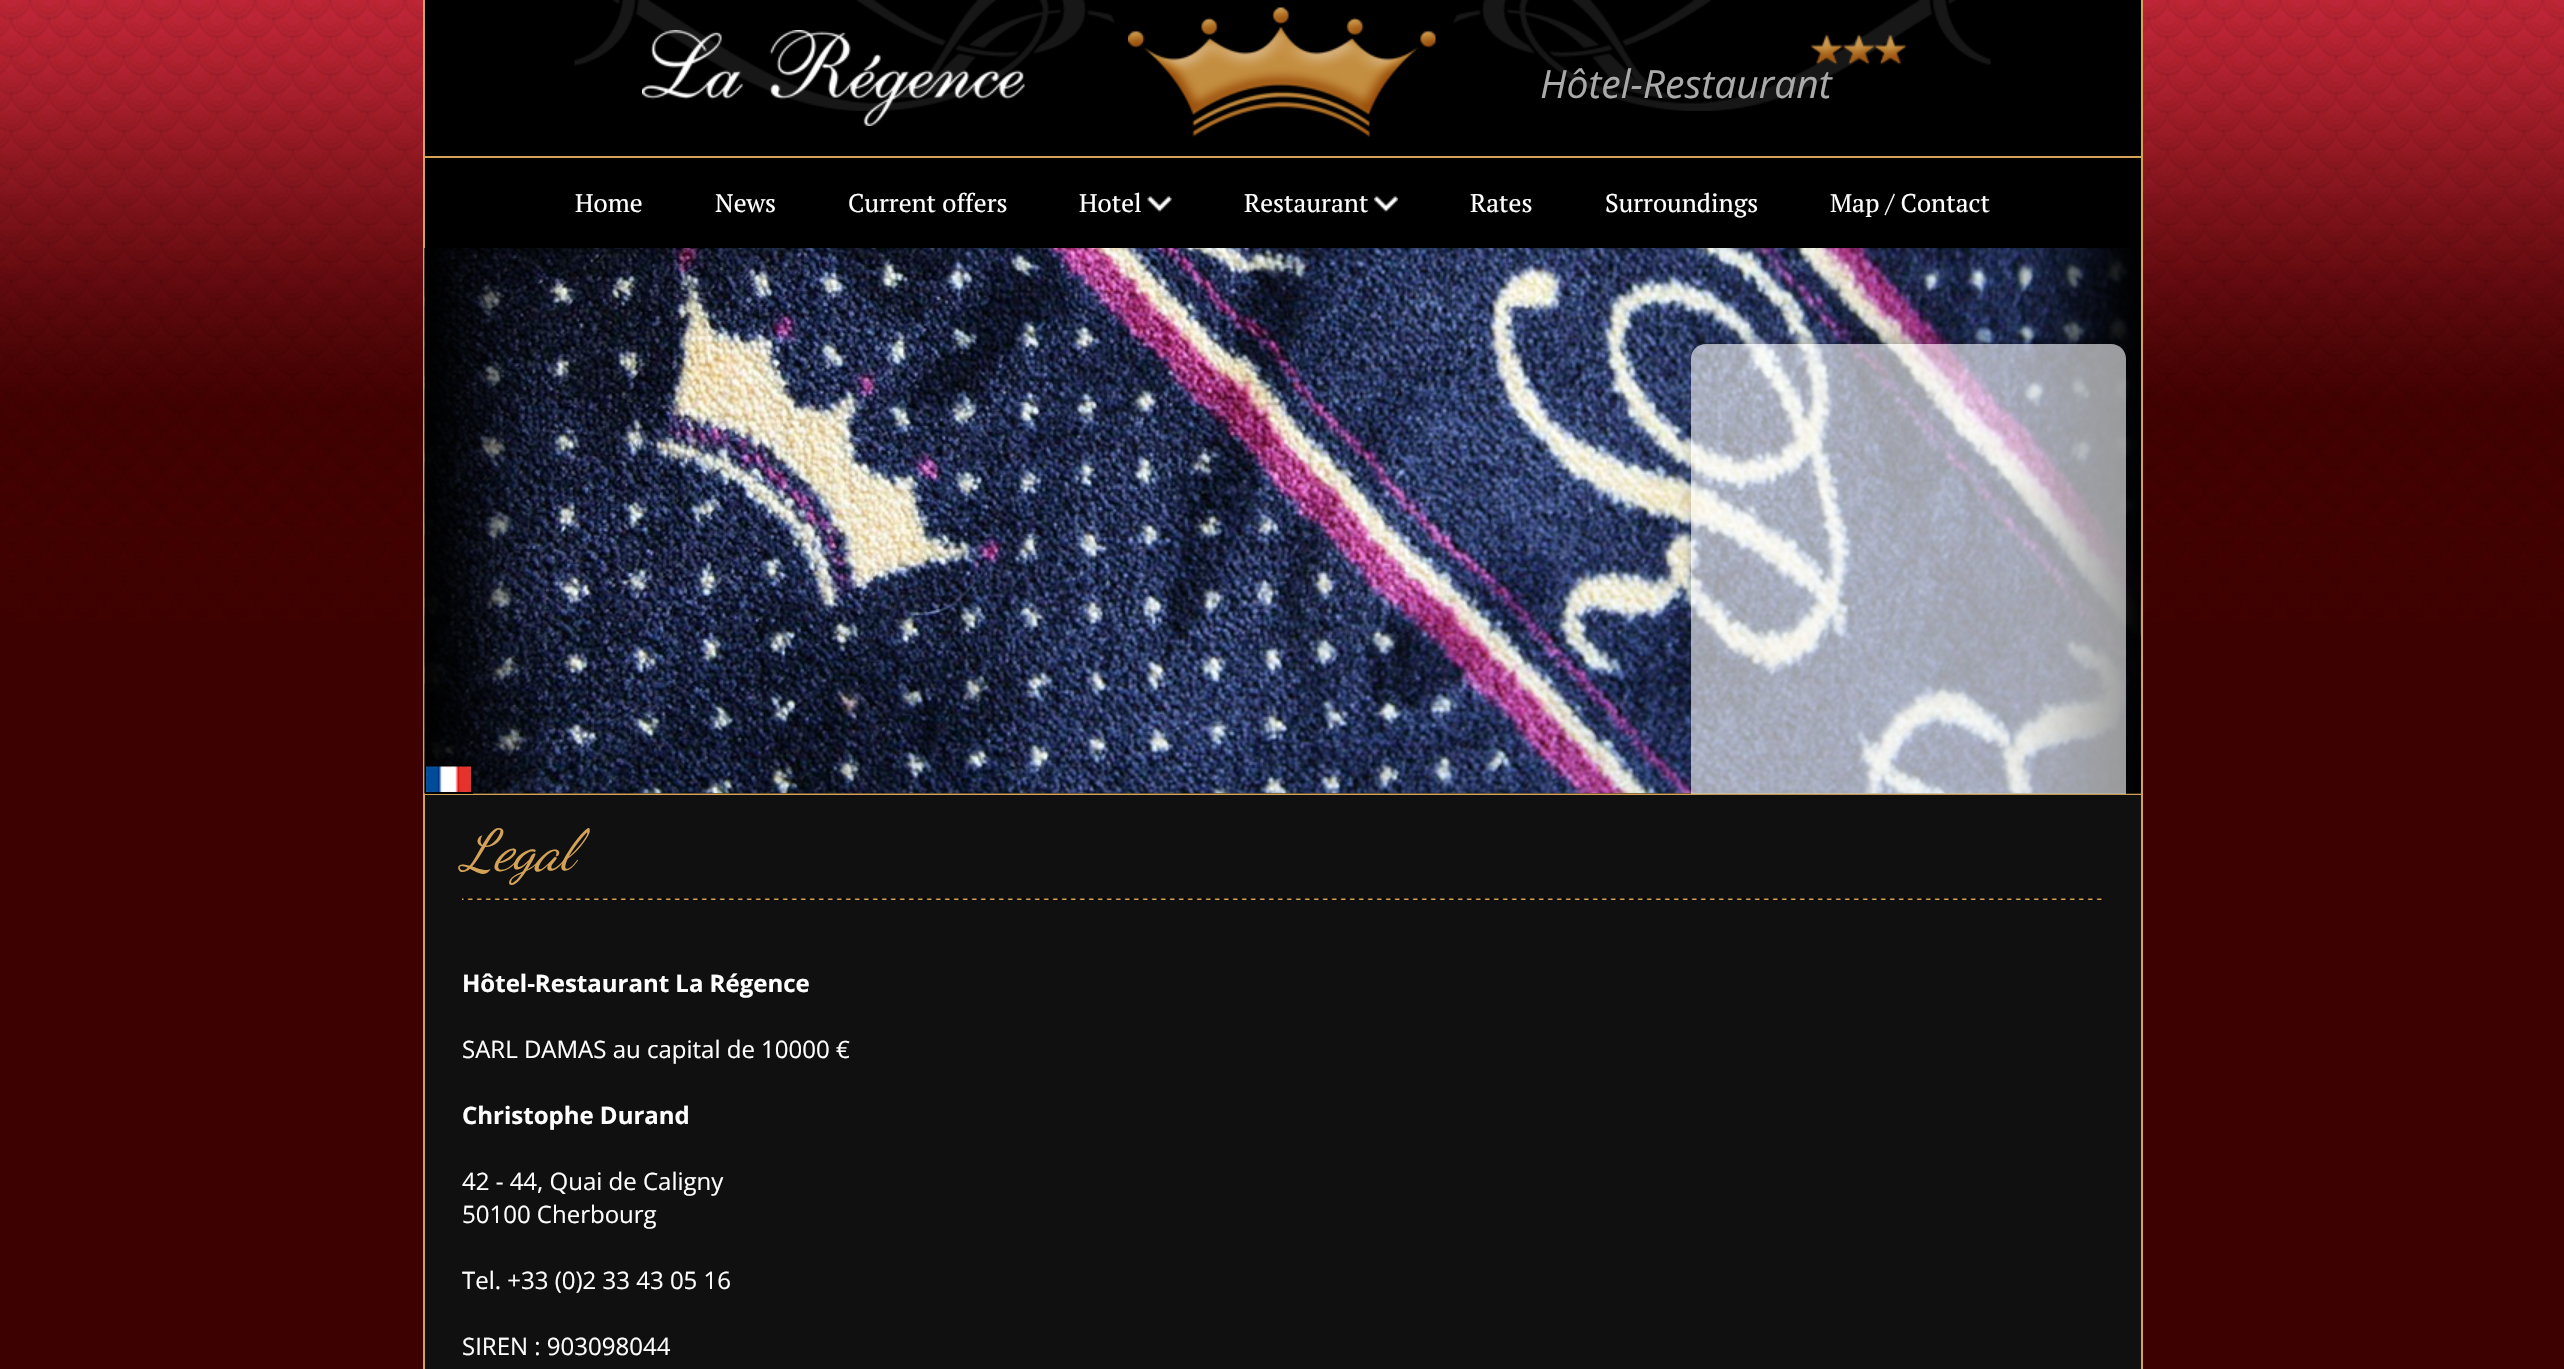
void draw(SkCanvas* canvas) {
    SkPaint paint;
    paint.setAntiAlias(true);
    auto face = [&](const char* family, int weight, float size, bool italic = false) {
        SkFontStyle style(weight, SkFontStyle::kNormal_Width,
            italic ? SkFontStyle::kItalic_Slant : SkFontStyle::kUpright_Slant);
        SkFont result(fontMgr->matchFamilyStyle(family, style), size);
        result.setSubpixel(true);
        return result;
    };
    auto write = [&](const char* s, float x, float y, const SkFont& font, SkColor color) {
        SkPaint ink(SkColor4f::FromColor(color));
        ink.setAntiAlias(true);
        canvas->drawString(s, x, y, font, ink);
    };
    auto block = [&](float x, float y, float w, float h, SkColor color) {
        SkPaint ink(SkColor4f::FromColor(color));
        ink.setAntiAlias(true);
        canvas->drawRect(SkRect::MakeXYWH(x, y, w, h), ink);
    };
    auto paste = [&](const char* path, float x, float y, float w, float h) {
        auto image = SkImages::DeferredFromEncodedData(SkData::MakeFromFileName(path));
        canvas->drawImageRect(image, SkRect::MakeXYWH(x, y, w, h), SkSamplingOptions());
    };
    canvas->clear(SkColorSetRGB(61, 1, 1));
    paste("pic1.png", 0, 0, 2564, 621);
    block(425, 0, 1716, 156, SK_ColorBLACK);
    paste("pic2.png", 574, 0, 1417, 111);
    block(2141, 0, 2, 158, SkColorSetRGB(213, 163, 86));
    block(423, 156, 1719, 2, SkColorSetRGB(213, 163, 86));
    block(423, 0, 2, 158, SkColorSetRGB(213, 163, 86));
    paste("pic3.png", 642, 30, 383, 96);
    paste("pic4.png", 1128, 7, 308, 130);
    paste("pic5.png", 1810, 34, 97, 31);
    auto kFont1 = face("Open Sans", 400, 39, true);
    write("Hôtel-Restaurant", 1540, 98, kFont1, SkColorSetRGB(170, 170, 170));
    block(2141, 158, 2, 636, SkColorSetRGB(213, 163, 86));
    block(423, 158, 2, 636, SkColorSetRGB(213, 163, 86));
    block(473, 248, 1668, 546, SK_ColorBLACK);
    paste("pic6.png", 424, 248, 1717, 546);
    paste("pic11.png", 423, 793, 1719, 2);
    paste("pic7.png", 424, 248, 1717, 546);
    paint.setStyle(SkPaint::kStroke_Style);
    paint.setStrokeWidth(2);
    paint.setColor(SK_ColorBLACK);
    canvas->drawRect(SkRect::MakeXYWH(426, 766, 46, 27), paint);
    paste("pic8.png", 426, 766, 45, 26);
    block(425, 795, 1716, 574, SkColorSetRGB(16, 16, 16));
    block(2141, 794, 2, 575, SkColorSetRGB(213, 163, 86));
    canvas->save();
    canvas->clipPath(SkPathBuilder(SkPathFillType::kEvenOdd).moveTo(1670, 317).lineTo(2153, 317).lineTo(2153, 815).lineTo(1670, 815).close().moveTo(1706, 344).lineTo(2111, 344).cubicTo(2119.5f, 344, 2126, 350.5f, 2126, 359).lineTo(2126, 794).lineTo(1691, 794).lineTo(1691, 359).cubicTo(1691, 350.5f, 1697.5f, 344, 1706, 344).close().detach(), true);
    paint.setStyle(SkPaint::kFill_Style);
    paint.setColor(SkColorSetARGB(84, 0, 0, 0));
    paint.setMaskFilter(SkMaskFilter::MakeBlur(kNormal_SkBlurStyle, 7.5f));
    canvas->drawRoundRect(SkRect::MakeXYWH(1694, 341, 435, 450), 15, 15, paint);
    paint.setMaskFilter(nullptr);
    canvas->restore();
    paint.setColor(SkColorSetARGB(153, 255, 255, 255));
    canvas->drawPath(SkPathBuilder().moveTo(1706, 344).lineTo(2111, 344).cubicTo(2119.5f, 344, 2126, 350.5f, 2126, 359).lineTo(2126, 794).lineTo(1691, 794).lineTo(1691, 359).cubicTo(1691, 350.5f, 1697.5f, 344, 1706, 344).close().detach(), paint);
    block(425, 158, 1716, 90, SK_ColorBLACK);
    auto kFont2 = face("PT Serif", 400, 25.5f);
    write("Home", 575, 212, kFont2, SK_ColorWHITE);
    write("News", 715, 212, kFont2, SK_ColorWHITE);
    write("Current offers", 848, 212, kFont2, SK_ColorWHITE);
    write("Hotel", 1079, 212, kFont2, SK_ColorWHITE);
    paste("pic9.png", 1147, 196, 25, 16);
    write("Restaurant", 1244, 212, kFont2, SK_ColorWHITE);
    paste("pic10.png", 1374, 196, 24, 16);
    write("Rates", 1470, 212, kFont2, SK_ColorWHITE);
    write("Surroundings", 1605, 212, kFont2, SK_ColorWHITE);
    write("Map / Contact", 1830, 212, kFont2, SK_ColorWHITE);
    block(423, 794, 2, 575, SkColorSetRGB(213, 163, 86));
    auto kFont3 = face("Dancing Script", 400, 57, true);
    write("Legal", 462, 869, kFont3, SkColorSetRGB(213, 163, 86));
    paste("pic12.png", 462, 898, 1641, 2);
    auto kFont4 = face("Open Sans", 700, 24);
    write("Hôtel-Restaurant La Régence", 462, 992, kFont4, SK_ColorWHITE);
    auto kFont5 = face("Open Sans", 400, 24);
    write("SARL DAMAS au capital de 10000 €", 462, 1058, kFont5, SK_ColorWHITE);
    write("Christophe Durand", 462, 1124, kFont4, SK_ColorWHITE);
    write("42 - 44, Quai de Caligny", 462, 1190, kFont5, SK_ColorWHITE);
    write("50100 Cherbourg", 462, 1223, kFont5, SK_ColorWHITE);
    write("Tel. +33 (0)2 33 43 05 16", 462, 1289, kFont5, SK_ColorWHITE);
    write("SIREN : 903098044", 462, 1355, kFont5, SK_ColorWHITE);
}
